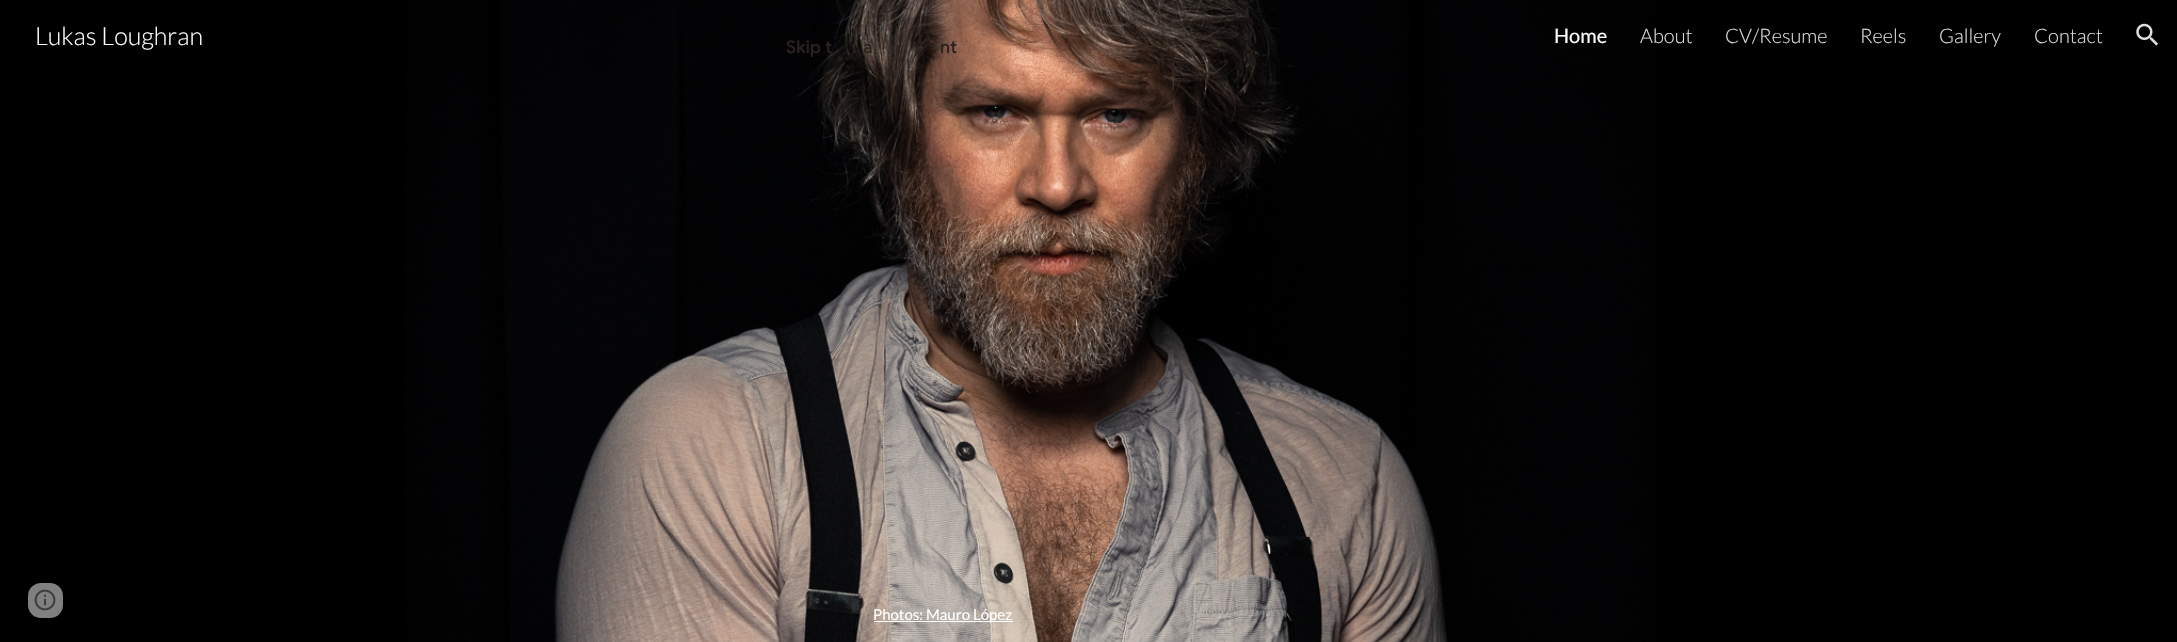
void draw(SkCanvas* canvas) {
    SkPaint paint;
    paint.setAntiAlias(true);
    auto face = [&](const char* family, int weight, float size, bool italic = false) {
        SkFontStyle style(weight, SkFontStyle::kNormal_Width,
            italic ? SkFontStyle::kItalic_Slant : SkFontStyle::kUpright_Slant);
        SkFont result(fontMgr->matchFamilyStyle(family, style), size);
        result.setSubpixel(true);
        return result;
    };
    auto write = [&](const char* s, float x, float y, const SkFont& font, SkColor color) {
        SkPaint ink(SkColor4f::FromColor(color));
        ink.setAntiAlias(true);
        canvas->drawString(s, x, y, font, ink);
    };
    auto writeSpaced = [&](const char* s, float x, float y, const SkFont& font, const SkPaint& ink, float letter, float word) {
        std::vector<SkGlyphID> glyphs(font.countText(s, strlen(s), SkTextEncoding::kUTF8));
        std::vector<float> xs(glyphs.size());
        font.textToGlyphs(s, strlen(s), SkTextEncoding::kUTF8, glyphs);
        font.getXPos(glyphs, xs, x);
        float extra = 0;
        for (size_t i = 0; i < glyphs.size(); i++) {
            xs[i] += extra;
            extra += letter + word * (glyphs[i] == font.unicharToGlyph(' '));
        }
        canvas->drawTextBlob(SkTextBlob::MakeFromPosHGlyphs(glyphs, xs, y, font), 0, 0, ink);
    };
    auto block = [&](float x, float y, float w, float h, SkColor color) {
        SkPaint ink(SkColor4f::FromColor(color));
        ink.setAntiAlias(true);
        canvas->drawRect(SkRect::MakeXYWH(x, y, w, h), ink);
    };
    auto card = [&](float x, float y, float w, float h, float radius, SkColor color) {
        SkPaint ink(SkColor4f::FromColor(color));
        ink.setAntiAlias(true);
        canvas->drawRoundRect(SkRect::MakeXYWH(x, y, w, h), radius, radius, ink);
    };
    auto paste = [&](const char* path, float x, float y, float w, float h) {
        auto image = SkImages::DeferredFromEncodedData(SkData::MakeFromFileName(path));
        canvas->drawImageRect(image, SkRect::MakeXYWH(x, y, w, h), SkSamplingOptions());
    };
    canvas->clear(SK_ColorBLACK);
    auto kFont1 = face("Lato", 300, 25);
    write("Lukas Loughran", 35, 45, kFont1, SK_ColorWHITE);
    paste("pic3.png", 405, 0, 1252, 642);
    auto kFont2 = face("Lato", 400, 20);
    write("Home", 1554, 43, kFont2, SK_ColorWHITE);
    auto kFont3 = face("Lato", 300, 20);
    write("About", 1640, 43, kFont3, SkColorSetRGB(222, 222, 222));
    write("CV/Resume", 1725, 43, kFont3, SkColorSetRGB(222, 222, 222));
    write("Reels", 1860, 43, kFont3, SkColorSetRGB(222, 222, 222));
    write("Gallery", 1939, 43, kFont3, SkColorSetRGB(222, 222, 222));
    write("Contact", 2034, 43, kFont3, SkColorSetRGB(222, 222, 222));
    paste("pic1.png", 2136, 23, 22, 23);
    card(28, 583, 35, 35, 13, SkColorSetRGB(128, 128, 128));
    paste("pic2.png", 34, 589, 22, 22);
    block(874, 621, 139, 1, SK_ColorWHITE);
    auto kFont4 = face("Lato", 400, 15);
    write("Photos: Mauro López", 873, 620, kFont4, SK_ColorWHITE);
    auto kFont5 = face("Google Sans", 500, 17.5f);
    paint.setColor(SkColorSetRGB(43, 34, 31));
    writeSpaced("Skip t", 786, 53, kFont5, paint, 0.25f, 0);
    writeSpaced("a", 863, 53, kFont5, paint, 0.25f, 0);
    writeSpaced("nt", 940, 53, kFont5, paint, 0.25f, 0);
}
